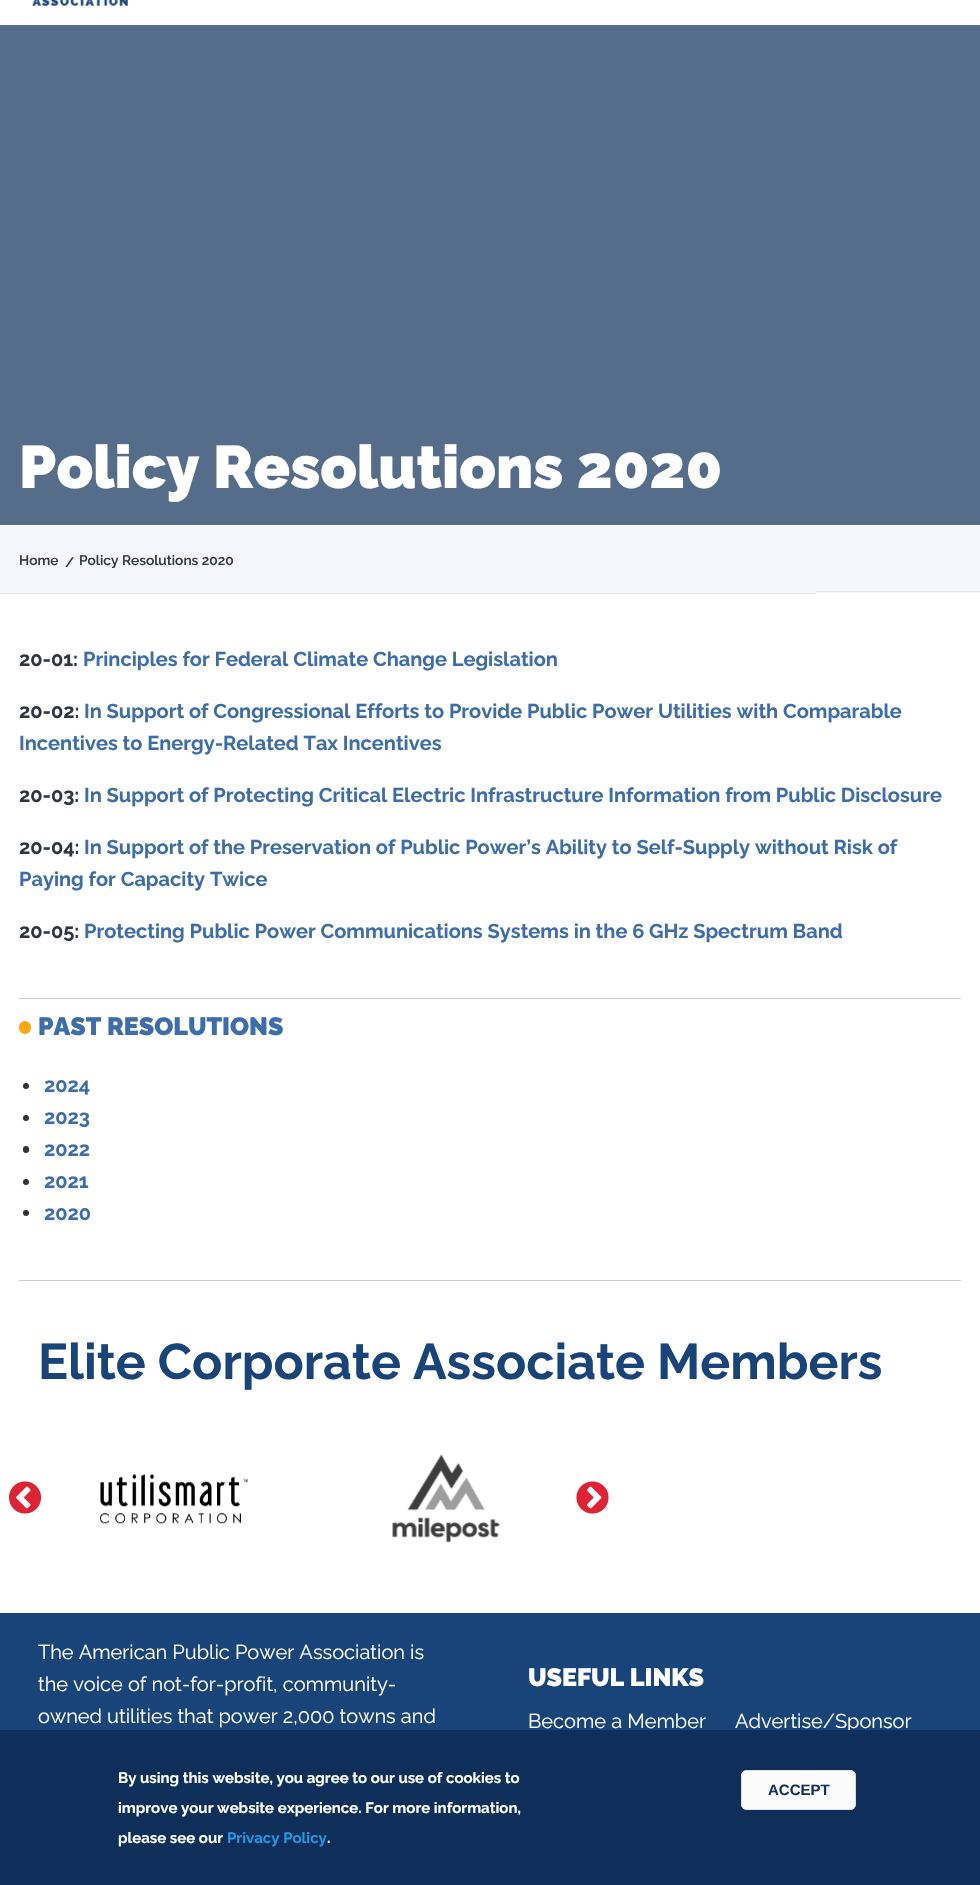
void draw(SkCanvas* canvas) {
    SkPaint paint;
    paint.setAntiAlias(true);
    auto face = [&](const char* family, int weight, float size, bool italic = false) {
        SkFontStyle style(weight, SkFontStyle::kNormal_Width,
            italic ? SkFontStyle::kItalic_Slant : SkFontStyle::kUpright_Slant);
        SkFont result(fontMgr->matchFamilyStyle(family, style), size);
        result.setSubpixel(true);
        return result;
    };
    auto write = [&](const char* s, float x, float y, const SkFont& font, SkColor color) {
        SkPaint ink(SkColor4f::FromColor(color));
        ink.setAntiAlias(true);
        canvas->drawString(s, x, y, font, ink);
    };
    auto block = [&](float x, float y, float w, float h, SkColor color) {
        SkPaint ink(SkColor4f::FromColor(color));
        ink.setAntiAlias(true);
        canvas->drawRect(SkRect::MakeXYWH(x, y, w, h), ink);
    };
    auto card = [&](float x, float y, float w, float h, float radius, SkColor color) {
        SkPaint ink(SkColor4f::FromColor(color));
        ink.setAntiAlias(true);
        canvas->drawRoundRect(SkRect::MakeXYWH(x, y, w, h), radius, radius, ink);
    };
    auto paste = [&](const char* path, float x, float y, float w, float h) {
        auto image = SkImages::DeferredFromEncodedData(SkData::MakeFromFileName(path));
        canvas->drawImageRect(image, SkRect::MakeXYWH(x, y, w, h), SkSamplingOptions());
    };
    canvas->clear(SK_ColorWHITE);
    paste("pic1.png", 31, 0, 97, 6);
    block(0, 25, 980, 500, SkColorSetRGB(85, 109, 138));
    auto kFont1 = face("Raleway", 900, 60);
    write("Policy Resolutions 2020", 19, 488, kFont1, SK_ColorWHITE);
    block(0, 525, 980, 68, SkColorSetRGB(245, 247, 252));
    block(0, 593, 816, 1, SkColorSetRGB(224, 227, 234));
    auto kFont2 = face("Raleway", 600, 13.75f);
    write("Home", 19, 565, kFont2, SkColorSetRGB(48, 54, 69));
    write("/", 65, 567, kFont2, SkColorSetRGB(48, 54, 69));
    write("Policy Resolutions 2020", 79, 565, kFont2, SkColorSetRGB(48, 54, 69));
    block(816, 591, 164, 1, SkColorSetRGB(224, 227, 234));
    auto kFont3 = face("Raleway", 700, 20);
    write("20-01:", 19, 666, kFont3, SkColorSetRGB(48, 54, 69));
    write("Principles for Federal Climate Change Legislation", 83, 666, kFont3, SkColorSetRGB(61, 109, 170));
    write("20-02:", 19, 718, kFont3, SkColorSetRGB(48, 54, 69));
    write("In Support of Congressional Efforts to Provide Public Power Utilities with Comparable", 84, 718, kFont3, SkColorSetRGB(61, 109, 170));
    write("Incentives to Energy-Related Tax Incentives", 19, 750, kFont3, SkColorSetRGB(61, 109, 170));
    write("20-03:", 19, 802, kFont3, SkColorSetRGB(48, 54, 69));
    write("In Support of Protecting Critical Electric Infrastructure Information from Public Disclosure", 84, 802, kFont3, SkColorSetRGB(61, 109, 170));
    write("20-04:", 19, 854, kFont3, SkColorSetRGB(48, 54, 69));
    write("In Support of the Preservation of Public Power’s Ability to Self-Supply without Risk of", 84, 854, kFont3, SkColorSetRGB(61, 109, 170));
    write("Paying for Capacity Twice", 19, 886, kFont3, SkColorSetRGB(61, 109, 170));
    write("20-05:", 19, 938, kFont3, SkColorSetRGB(48, 54, 69));
    write("Protecting Public Power Communications Systems in the 6 GHz Spectrum Band", 84, 938, kFont3, SkColorSetRGB(61, 109, 170));
    block(19, 998, 942, 1, SkColorSetRGB(204, 204, 204));
    block(19, 1280, 942, 1, SkColorSetRGB(204, 204, 204));
    card(19, 1021, 12, 13, 6, SkColorSetRGB(253, 169, 18));
    auto kFont4 = face("Raleway", 900, 25);
    write("PAST RESOLUTIONS", 38, 1035, kFont4, SkColorSetRGB(61, 109, 170));
    paint.setColor(SkColorSetRGB(51, 51, 51));
    canvas->drawCircle(26, 1086, 3, paint);
    write("2024", 44, 1092, kFont3, SkColorSetRGB(61, 109, 170));
    canvas->drawCircle(26, 1118, 3, paint);
    write("2023", 44, 1124, kFont3, SkColorSetRGB(61, 109, 170));
    card(23, 1146, 6, 7, 3, SkColorSetRGB(51, 51, 51));
    write("2022", 44, 1156, kFont3, SkColorSetRGB(61, 109, 170));
    canvas->drawCircle(26, 1182, 3, paint);
    write("2021", 44, 1188, kFont3, SkColorSetRGB(61, 109, 170));
    canvas->drawCircle(26, 1213, 3, paint);
    write("2020", 44, 1220, kFont3, SkColorSetRGB(61, 109, 170));
    block(0, 1613, 980, 272, SkColorSetRGB(25, 68, 122));
    auto kFont5 = face("Raleway", 700, 50);
    write("Elite Corporate Associate Members", 38, 1379, kFont5, SkColorSetRGB(25, 68, 122));
    paste("pic2.png", 8, 1481, 34, 33);
    paste("pic3.png", 100, 1474, 148, 50);
    paste("pic4.png", 392, 1454, 108, 89);
    paste("pic5.png", 576, 1481, 33, 33);
    auto kFont6 = face("Raleway", 400, 20);
    write("The American Public Power Association is", 38, 1659, kFont6, SK_ColorWHITE);
    write("the voice of not-for-profit, community-", 38, 1691, kFont6, SK_ColorWHITE);
    write("owned utilities that power 2,000 towns and", 38, 1723, kFont6, SK_ColorWHITE);
    write("USEFUL LINKS", 528, 1686, kFont4, SK_ColorWHITE);
    write("Become a Member", 528, 1728, kFont6, SK_ColorWHITE);
    write("Advertise/Sponsor", 735, 1728, kFont6, SK_ColorWHITE);
    block(0, 1730, 980, 155, SkColorSetARGB(250, 12, 46, 88));
    auto kFont7 = face("Raleway", 700, 15);
    write("By using this website, you agree to our use of cookies to", 118, 1783, kFont7, SK_ColorWHITE);
    write("improve your website experience. For more information,", 118, 1813, kFont7, SK_ColorWHITE);
    write("please see our", 118, 1843, kFont7, SK_ColorWHITE);
    write("Privacy Policy", 227, 1843, kFont7, SkColorSetRGB(33, 151, 230));
    write(".", 327, 1843, kFont7, SK_ColorWHITE);
    card(741, 1770, 115, 40, 6, SkColorSetARGB(250, 255, 255, 255));
    paint.setColor(SK_ColorWHITE);
    canvas->drawPath(SkPathBuilder().moveTo(748, 1772).lineTo(850, 1772).cubicTo(853, 1772, 855, 1775, 855, 1778).lineTo(855, 1776).cubicTo(855, 1773, 853, 1771, 850, 1771).lineTo(748, 1771).cubicTo(746, 1771, 744, 1773, 743, 1775).cubicTo(744, 1773, 746, 1772, 748, 1772).close().detach(), paint);
    paint.setStyle(SkPaint::kStroke_Style);
    paint.setStrokeWidth(1);
    paint.setColor(SkColorSetARGB(250, 220, 220, 220));
    canvas->drawRoundRect(SkRect::MakeXYWH(741.5f, 1770.5f, 114, 39), 5.5f, 5.5f, paint);
    auto kFont8 = face("Liberation Sans", 700, 15);
    write("ACCEPT", 768, 1795, kFont8, SkColorSetRGB(19, 51, 90));
}
